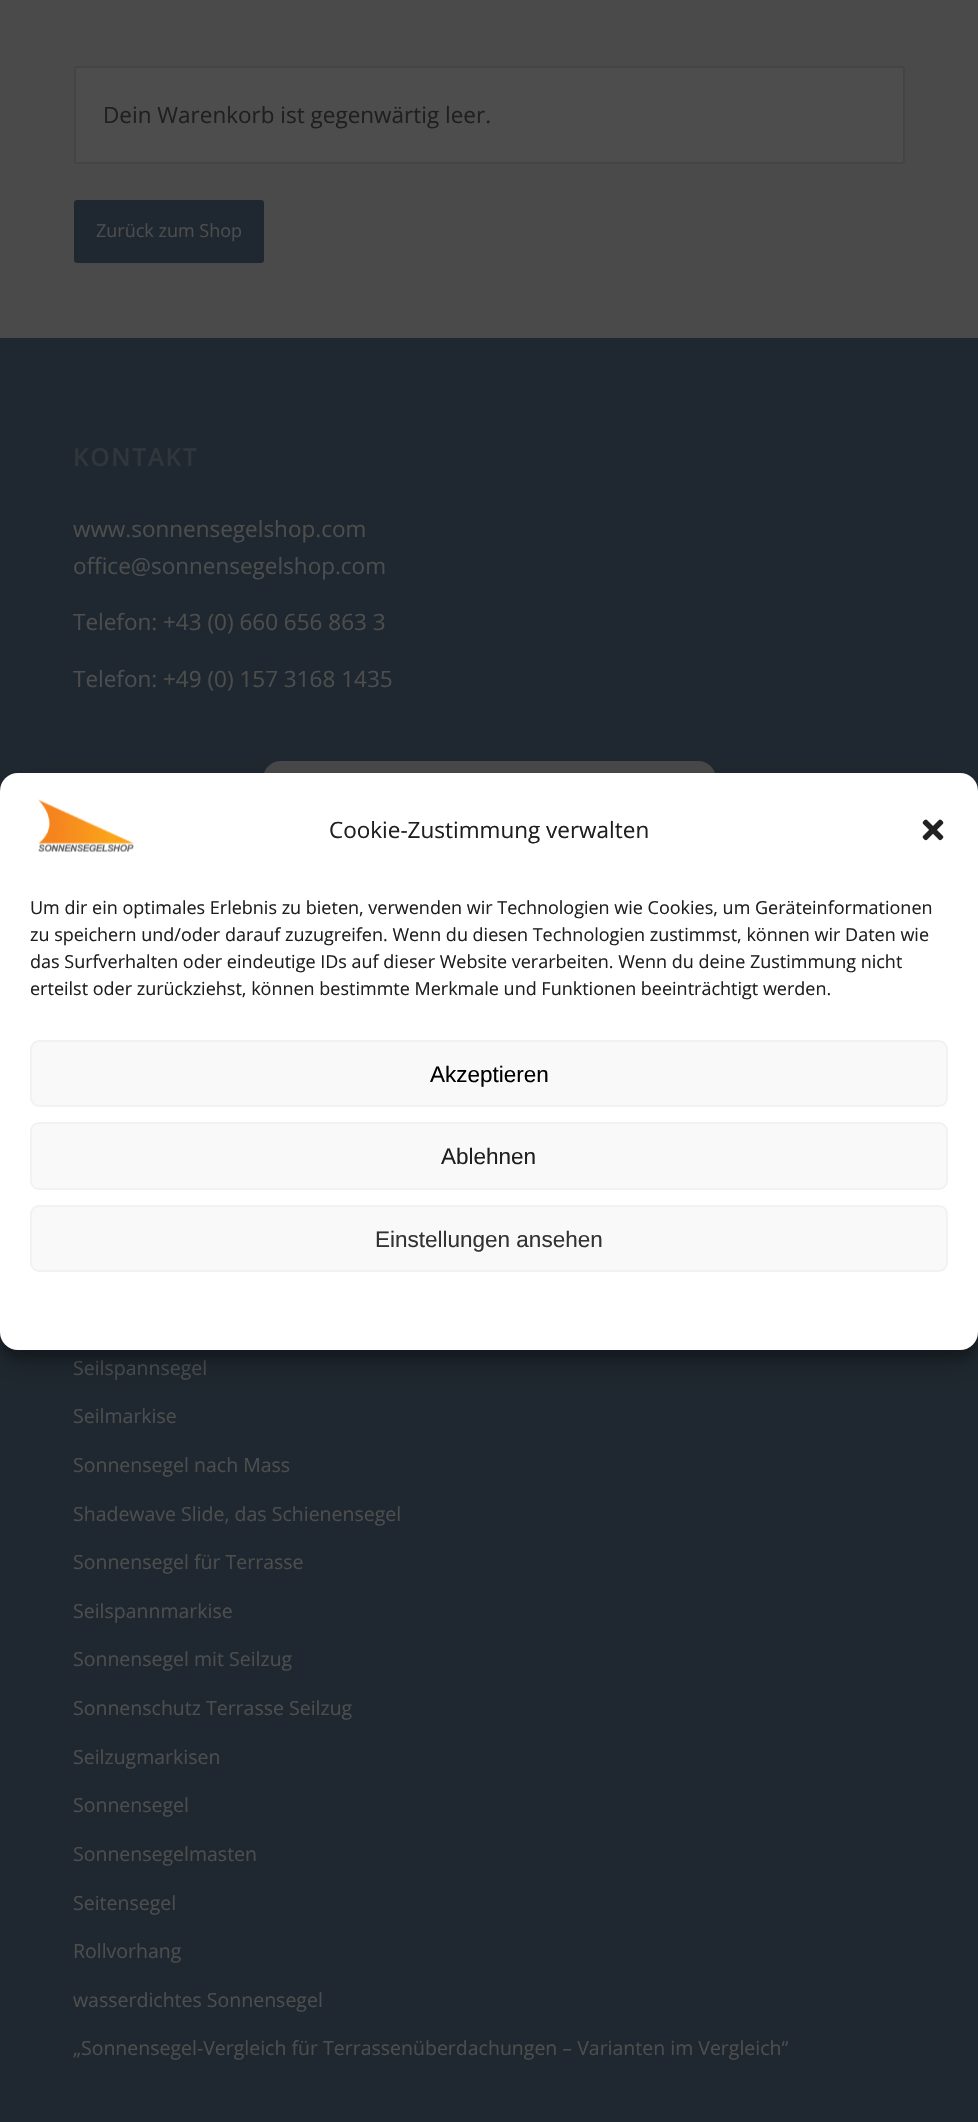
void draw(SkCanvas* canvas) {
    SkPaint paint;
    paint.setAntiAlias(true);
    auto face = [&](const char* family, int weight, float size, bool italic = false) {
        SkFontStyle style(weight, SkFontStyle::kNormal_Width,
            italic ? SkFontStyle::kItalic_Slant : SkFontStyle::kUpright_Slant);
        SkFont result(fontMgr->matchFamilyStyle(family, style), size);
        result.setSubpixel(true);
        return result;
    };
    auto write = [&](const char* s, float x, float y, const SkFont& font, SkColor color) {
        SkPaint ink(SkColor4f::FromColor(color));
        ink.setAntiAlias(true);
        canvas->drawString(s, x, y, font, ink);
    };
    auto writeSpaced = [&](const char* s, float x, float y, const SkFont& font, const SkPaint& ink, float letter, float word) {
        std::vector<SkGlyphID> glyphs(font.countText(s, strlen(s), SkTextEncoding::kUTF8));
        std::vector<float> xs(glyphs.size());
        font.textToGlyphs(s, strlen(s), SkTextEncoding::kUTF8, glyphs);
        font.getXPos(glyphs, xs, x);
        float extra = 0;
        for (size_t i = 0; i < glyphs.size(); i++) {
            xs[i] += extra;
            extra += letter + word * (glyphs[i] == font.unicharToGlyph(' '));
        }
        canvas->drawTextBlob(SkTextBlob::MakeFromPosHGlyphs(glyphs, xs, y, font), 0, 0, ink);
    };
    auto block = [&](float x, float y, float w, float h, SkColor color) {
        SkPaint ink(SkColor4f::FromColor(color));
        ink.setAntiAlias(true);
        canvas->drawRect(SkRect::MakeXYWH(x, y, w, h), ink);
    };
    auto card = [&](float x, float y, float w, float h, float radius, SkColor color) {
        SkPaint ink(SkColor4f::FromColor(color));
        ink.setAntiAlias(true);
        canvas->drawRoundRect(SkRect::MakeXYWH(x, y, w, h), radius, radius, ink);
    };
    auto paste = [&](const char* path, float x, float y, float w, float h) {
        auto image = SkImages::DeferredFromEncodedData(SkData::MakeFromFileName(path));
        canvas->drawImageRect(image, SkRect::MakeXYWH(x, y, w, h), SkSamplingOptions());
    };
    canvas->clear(SkColorSetRGB(74, 74, 74));
    paint.setColor(SkColorSetRGB(77, 77, 77));
    canvas->drawRoundRect(SkRect::MakeXYWH(75, 67, 829, 96), 2, 2, paint);
    paint.setStyle(SkPaint::kStroke_Style);
    paint.setStrokeWidth(2);
    paint.setColor(SkColorSetRGB(68, 68, 68));
    canvas->drawRoundRect(SkRect::MakeXYWH(75, 67, 829, 96), 2, 2, paint);
    auto kFont1 = face("Open Sans", 400, 22.5f);
    write("Dein Warenkorb ist gegenwärtig leer.", 103, 123, kFont1, SkColorSetRGB(31, 31, 31));
    card(74, 200, 190, 63, 3, SkColorSetRGB(31, 40, 48));
    auto kFont2 = face("Open Sans", 400, 18);
    write("Zurück zum Shop", 96, 237, kFont2, SkColorSetRGB(77, 77, 77));
    block(0, 338, 978, 1784, SkColorSetRGB(31, 40, 48));
    auto kFont3 = face("Open Sans", 600, 24.75f);
    paint.setStyle(SkPaint::kFill_Style);
    paint.setColor(SkColorSetRGB(47, 55, 61));
    writeSpaced("KONTAKT", 73, 466, kFont3, paint, 1.5f, 0);
    write("www.sonnensegelshop.com", 73, 537, kFont1, SkColorSetRGB(77, 77, 77));
    write("office@sonnensegelshop.com", 73, 574, kFont1, SkColorSetRGB(77, 77, 77));
    write("Telefon: +43 (0) 660 656 863 3", 73, 630, kFont1, SkColorSetRGB(77, 77, 77));
    write("Telefon: +49 (0) 157 3168 1435", 73, 687, kFont1, SkColorSetRGB(77, 77, 77));
    paint.setColor(SkColorSetRGB(72, 72, 72));
    canvas->drawRoundRect(SkRect::MakeXYWH(264.5f, 762.5f, 450, 147), 16.5f, 16.5f, paint);
    paint.setStyle(SkPaint::kStroke_Style);
    paint.setStrokeWidth(3);
    canvas->drawRoundRect(SkRect::MakeXYWH(264.5f, 762.5f, 450, 147), 16.5f, 16.5f, paint);
    auto kFont4 = face("Open Sans", 400, 19.5f);
    write("Seilspannsegel", 73, 1375, kFont4, SkColorSetRGB(77, 77, 77));
    write("Seilmarkise", 73, 1423, kFont4, SkColorSetRGB(77, 77, 77));
    write("Sonnensegel nach Mass", 73, 1472, kFont4, SkColorSetRGB(77, 77, 77));
    write("Shadewave Slide, das Schienensegel", 73, 1521, kFont4, SkColorSetRGB(77, 77, 77));
    write("Sonnensegel für Terrasse", 73, 1569, kFont4, SkColorSetRGB(77, 77, 77));
    write("Seilspannmarkise", 73, 1618, kFont4, SkColorSetRGB(77, 77, 77));
    write("Sonnensegel mit Seilzug", 73, 1666, kFont4, SkColorSetRGB(77, 77, 77));
    write("Sonnenschutz Terrasse Seilzug", 73, 1715, kFont4, SkColorSetRGB(77, 77, 77));
    write("Seilzugmarkisen", 73, 1764, kFont4, SkColorSetRGB(77, 77, 77));
    write("Sonnensegel", 73, 1812, kFont4, SkColorSetRGB(77, 77, 77));
    write("Sonnensegelmasten", 73, 1861, kFont4, SkColorSetRGB(77, 77, 77));
    write("Seitensegel", 73, 1910, kFont4, SkColorSetRGB(77, 77, 77));
    write("Rollvorhang", 73, 1958, kFont4, SkColorSetRGB(77, 77, 77));
    write("wasserdichtes Sonnensegel", 73, 2007, kFont4, SkColorSetRGB(77, 77, 77));
    write("„Sonnensegel-Vergleich für Terrassenüberdachungen – Varianten im Vergleich“", 73, 2055, kFont4, SkColorSetRGB(77, 77, 77));
    paint.setStyle(SkPaint::kFill_Style);
    paint.setColor(SkColorSetARGB(59, 0, 0, 0));
    paint.setMaskFilter(SkMaskFilter::MakeBlur(kNormal_SkBlurStyle, 4.5f));
    canvas->drawRoundRect(SkRect::MakeXYWH(0, 782, 978, 577), 18, 18, paint);
    paint.setMaskFilter(nullptr);
    paint.setColor(SkColorSetARGB(48, 0, 0, 0));
    paint.setMaskFilter(SkMaskFilter::MakeBlur(kNormal_SkBlurStyle, 15));
    canvas->drawRoundRect(SkRect::MakeXYWH(0, 788, 978, 577), 18, 18, paint);
    paint.setMaskFilter(nullptr);
    card(0, 773, 978, 577, 18, SK_ColorWHITE);
    paste("pic1.png", 38, 799, 96, 54);
    write("Cookie-Zustimmung verwalten", 329, 838, kFont1, SkColorSetRGB(31, 31, 31));
    paste("pic2.png", 922, 819, 22, 22);
    write("Um dir ein optimales Erlebnis zu bieten, verwenden wir Technologien wie Cookies, um Geräteinformationen", 30, 914, kFont2, SkColorSetRGB(31, 31, 31));
    write("zu speichern und/oder darauf zuzugreifen. Wenn du diesen Technologien zustimmst, können wir Daten wie", 30, 941, kFont2, SkColorSetRGB(31, 31, 31));
    write("das Surfverhalten oder eindeutige IDs auf dieser Website verarbeiten. Wenn du deine Zustimmung nicht", 30, 968, kFont2, SkColorSetRGB(31, 31, 31));
    write("erteilst oder zurückziehst, können bestimmte Merkmale und Funktionen beeinträchtigt werden.", 30, 995, kFont2, SkColorSetRGB(31, 31, 31));
    paint.setColor(SkColorSetRGB(249, 249, 249));
    canvas->drawRoundRect(SkRect::MakeXYWH(31, 1041, 916, 65), 8, 8, paint);
    paint.setStyle(SkPaint::kStroke_Style);
    paint.setStrokeWidth(2);
    paint.setColor(SkColorSetRGB(242, 242, 242));
    canvas->drawRoundRect(SkRect::MakeXYWH(31, 1041, 916, 65), 8, 8, paint);
    auto kFont5 = face("Liberation Sans", 400, 22.5f);
    write("Akzeptieren", 430, 1082, kFont5, SK_ColorBLACK);
    paint.setStyle(SkPaint::kFill_Style);
    paint.setColor(SkColorSetRGB(249, 249, 249));
    canvas->drawRoundRect(SkRect::MakeXYWH(31, 1123, 916, 66), 8, 8, paint);
    paint.setStyle(SkPaint::kStroke_Style);
    paint.setColor(SkColorSetRGB(242, 242, 242));
    canvas->drawRoundRect(SkRect::MakeXYWH(31, 1123, 916, 66), 8, 8, paint);
    write("Ablehnen", 441, 1164, kFont5, SkColorSetRGB(31, 31, 31));
    paint.setStyle(SkPaint::kFill_Style);
    paint.setColor(SkColorSetRGB(249, 249, 249));
    canvas->drawRoundRect(SkRect::MakeXYWH(31, 1206, 916, 65), 8, 8, paint);
    paint.setStyle(SkPaint::kStroke_Style);
    paint.setColor(SkColorSetRGB(242, 242, 242));
    canvas->drawRoundRect(SkRect::MakeXYWH(31, 1206, 916, 65), 8, 8, paint);
    write("Einstellungen ansehen", 375, 1247, kFont5, SkColorSetRGB(51, 51, 51));
}
